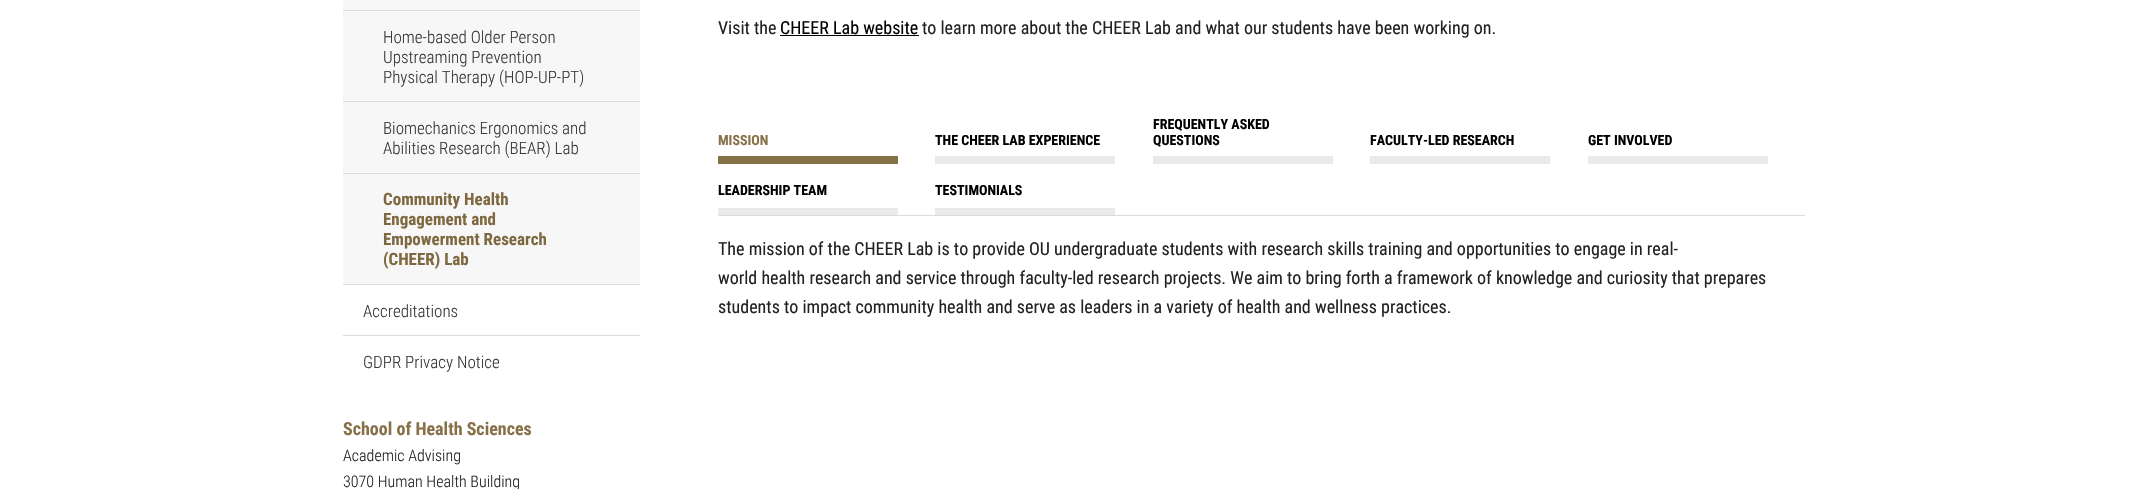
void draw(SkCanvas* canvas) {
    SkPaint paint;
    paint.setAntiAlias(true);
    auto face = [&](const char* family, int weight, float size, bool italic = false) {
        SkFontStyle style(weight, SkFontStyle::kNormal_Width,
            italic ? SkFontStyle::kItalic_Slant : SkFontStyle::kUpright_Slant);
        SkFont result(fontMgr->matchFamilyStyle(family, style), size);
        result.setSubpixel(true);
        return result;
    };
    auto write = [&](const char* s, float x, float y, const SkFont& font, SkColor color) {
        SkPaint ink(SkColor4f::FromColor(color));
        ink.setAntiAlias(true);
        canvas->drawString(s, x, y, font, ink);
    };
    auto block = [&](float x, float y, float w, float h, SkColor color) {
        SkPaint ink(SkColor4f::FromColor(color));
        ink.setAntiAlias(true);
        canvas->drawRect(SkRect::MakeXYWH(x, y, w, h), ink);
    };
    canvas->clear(SK_ColorWHITE);
    block(343, 0, 297, 284, SkColorSetRGB(247, 247, 247));
    block(343, 10, 297, 1, SkColorSetRGB(220, 220, 220));
    auto kFont1 = face("Roboto Condensed", 300, 17);
    write("Home-based Older Person", 383, 43, kFont1, SkColorSetRGB(56, 56, 56));
    write("Upstreaming Prevention", 383, 63, kFont1, SkColorSetRGB(56, 56, 56));
    write("Physical Therapy (HOP-UP-PT)", 383, 83, kFont1, SkColorSetRGB(56, 56, 56));
    block(343, 101, 297, 1, SkColorSetRGB(220, 220, 220));
    write("Biomechanics Ergonomics and", 383, 134, kFont1, SkColorSetRGB(56, 56, 56));
    write("Abilities Research (BEAR) Lab", 383, 154, kFont1, SkColorSetRGB(56, 56, 56));
    block(343, 173, 297, 1, SkColorSetRGB(220, 220, 220));
    auto kFont2 = face("Roboto Condensed", 700, 17);
    write("Community Health", 383, 205, kFont2, SkColorSetRGB(126, 104, 64));
    write("Engagement and", 383, 225, kFont2, SkColorSetRGB(126, 104, 64));
    write("Empowerment Research", 383, 245, kFont2, SkColorSetRGB(126, 104, 64));
    write("(CHEER) Lab", 383, 265, kFont2, SkColorSetRGB(126, 104, 64));
    block(343, 284, 297, 1, SkColorSetRGB(220, 220, 220));
    write("Accreditations", 363, 317, kFont1, SkColorSetRGB(56, 56, 56));
    block(343, 335, 297, 1, SkColorSetRGB(220, 220, 220));
    write("GDPR Privacy Notice", 363, 368, kFont1, SkColorSetRGB(56, 56, 56));
    auto kFont3 = face("Roboto Condensed", 700, 18);
    write("School of Health Sciences", 343, 435, kFont3, SkColorSetRGB(135, 113, 72));
    auto kFont4 = face("Roboto Condensed", 300, 16);
    write("Academic Advising", 343, 461, kFont4, SkColorSetRGB(34, 34, 34));
    write("3070 Human Health Building", 343, 487, kFont4, SkColorSetRGB(34, 34, 34));
    auto kFont5 = face("Roboto Condensed", 400, 18);
    write("Visit the", 718, 34, kFont5, SkColorSetRGB(34, 34, 34));
    write("CHEER Lab website", 780, 34, kFont5, SK_ColorBLACK);
    block(780, 35, 139, 1, SK_ColorBLACK);
    write("to learn more about the CHEER Lab and what our students have been working on.", 922, 34, kFont5, SkColorSetRGB(34, 34, 34));
    block(718, 215, 1087, 1, SkColorSetRGB(220, 220, 220));
    block(718, 156, 180, 8, SkColorSetRGB(135, 113, 72));
    auto kFont6 = face("Roboto Condensed", 700, 14);
    write("MISSION", 718, 145, kFont6, SkColorSetRGB(135, 113, 72));
    block(935, 156, 180, 8, SkColorSetRGB(234, 234, 234));
    write("THE CHEER LAB EXPERIENCE", 935, 145, kFont6, SK_ColorBLACK);
    block(1153, 156, 180, 8, SkColorSetRGB(234, 234, 234));
    write("FREQUENTLY ASKED", 1153, 129, kFont6, SK_ColorBLACK);
    write("QUESTIONS", 1153, 145, kFont6, SK_ColorBLACK);
    block(1370, 156, 180, 8, SkColorSetRGB(234, 234, 234));
    write("FACULTY-LED RESEARCH", 1370, 145, kFont6, SK_ColorBLACK);
    block(1588, 156, 180, 8, SkColorSetRGB(234, 234, 234));
    write("GET INVOLVED", 1588, 145, kFont6, SK_ColorBLACK);
    block(718, 208, 180, 7, SkColorSetRGB(234, 234, 234));
    write("LEADERSHIP TEAM", 718, 195, kFont6, SK_ColorBLACK);
    block(935, 208, 180, 7, SkColorSetRGB(234, 234, 234));
    write("TESTIMONIALS", 935, 195, kFont6, SK_ColorBLACK);
    write("The mission of the CHEER Lab is to provide OU undergraduate students with research skills training and opportunities to engage in real-", 718, 255, kFont5, SkColorSetRGB(34, 34, 34));
    write("world health research and service through faculty-led research projects. We aim to bring forth a framework of knowledge and curiosity that prepares", 718, 284, kFont5, SkColorSetRGB(34, 34, 34));
    write("students to impact community health and serve as leaders in a variety of health and wellness practices.", 718, 313, kFont5, SkColorSetRGB(34, 34, 34));
}
